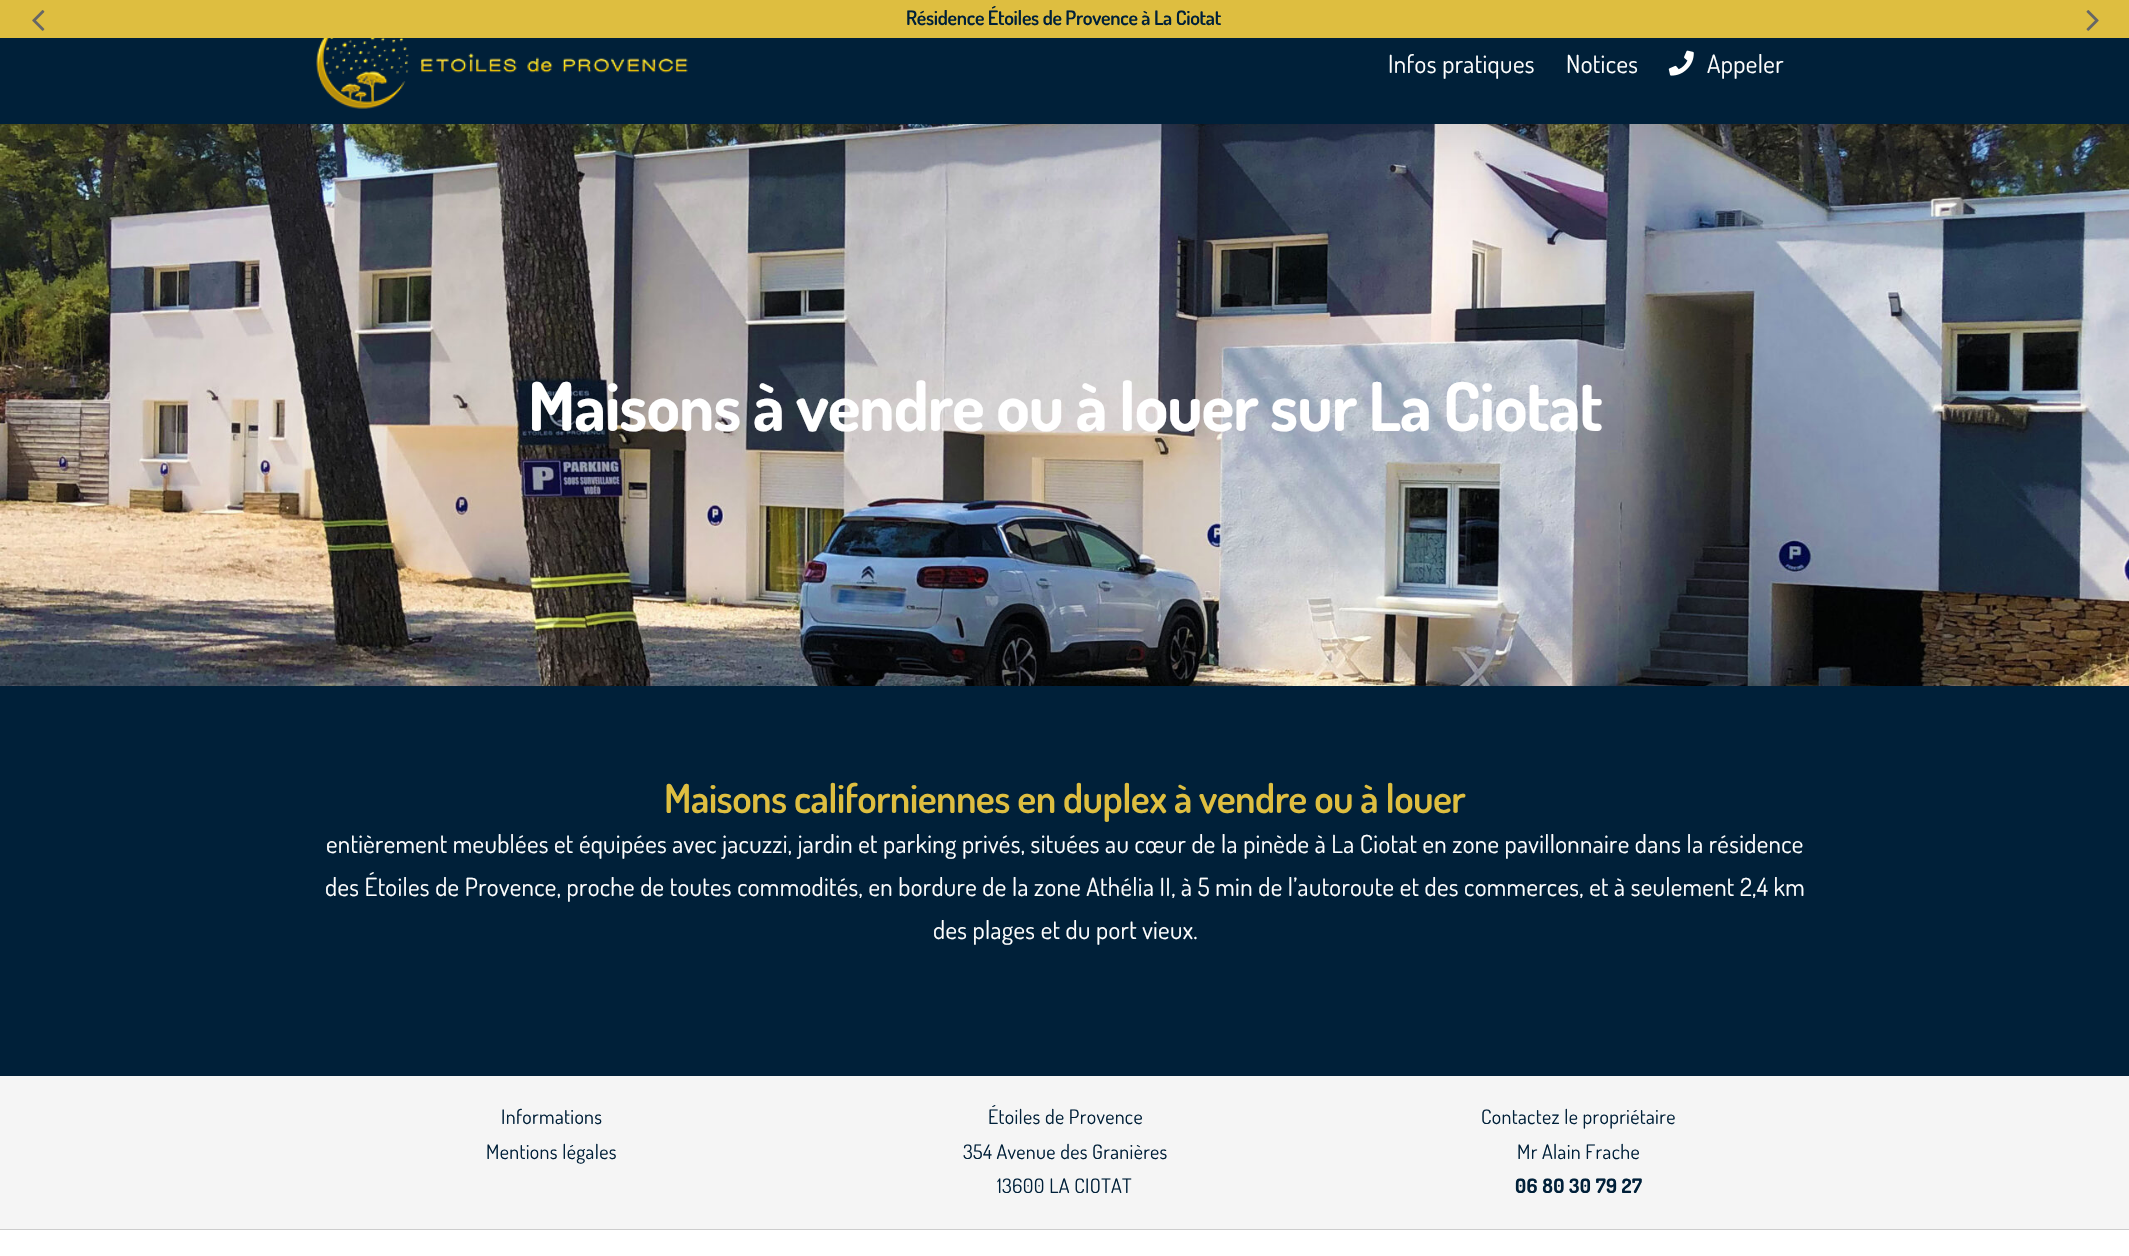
void draw(SkCanvas* canvas) {
    SkPaint paint;
    paint.setAntiAlias(true);
    auto face = [&](const char* family, int weight, float size, bool italic = false) {
        SkFontStyle style(weight, SkFontStyle::kNormal_Width,
            italic ? SkFontStyle::kItalic_Slant : SkFontStyle::kUpright_Slant);
        SkFont result(fontMgr->matchFamilyStyle(family, style), size);
        result.setSubpixel(true);
        return result;
    };
    auto writeSpaced = [&](const char* s, float x, float y, const SkFont& font, const SkPaint& ink, float letter, float word) {
        std::vector<SkGlyphID> glyphs(font.countText(s, strlen(s), SkTextEncoding::kUTF8));
        std::vector<float> xs(glyphs.size());
        font.textToGlyphs(s, strlen(s), SkTextEncoding::kUTF8, glyphs);
        font.getXPos(glyphs, xs, x);
        float extra = 0;
        for (size_t i = 0; i < glyphs.size(); i++) {
            xs[i] += extra;
            extra += letter + word * (glyphs[i] == font.unicharToGlyph(' '));
        }
        canvas->drawTextBlob(SkTextBlob::MakeFromPosHGlyphs(glyphs, xs, y, font), 0, 0, ink);
    };
    auto block = [&](float x, float y, float w, float h, SkColor color) {
        SkPaint ink(SkColor4f::FromColor(color));
        ink.setAntiAlias(true);
        canvas->drawRect(SkRect::MakeXYWH(x, y, w, h), ink);
    };
    auto paste = [&](const char* path, float x, float y, float w, float h) {
        auto image = SkImages::DeferredFromEncodedData(SkData::MakeFromFileName(path));
        canvas->drawImageRect(image, SkRect::MakeXYWH(x, y, w, h), SkSamplingOptions());
    };
    canvas->clear(SK_ColorWHITE);
    paste("pic5.png", 0, 124, 2129, 562);
    paint.setColor(SkColorSetARGB(36, 0, 0, 0));
    paint.setMaskFilter(SkMaskFilter::MakeBlur(kNormal_SkBlurStyle, 31));
    canvas->drawRect(SkRect::MakeXYWH(3, 18, 2125, 116), paint);
    paint.setMaskFilter(nullptr);
    block(0, 0, 2129, 38, SkColorSetRGB(222, 190, 64));
    paste("pic1.png", 32, 10, 13, 21);
    auto kFont1 = face("Dosis", 600, 20);
    paint.setColor(SkColorSetRGB(0, 32, 57));
    writeSpaced("Résidence Étoiles de Provence à La Ciotat", 906, 25, kFont1, paint, -0.3f, 0);
    paste("pic2.png", 2086, 10, 13, 21);
    block(0, 38, 2129, 86, SkColorSetRGB(0, 32, 57));
    paste("pic3.png", 316, 38, 372, 71);
    auto kFont2 = face("Dosis", 400, 25);
    paint.setColor(SK_ColorWHITE);
    writeSpaced("Infos pratiques", 1388, 73, kFont2, paint, 0.4f, 0);
    writeSpaced("Notices", 1566, 73, kFont2, paint, 0.4f, 0);
    paste("pic4.png", 1668, 50, 26, 26);
    writeSpaced("Appeler", 1707, 73, kFont2, paint, 0.4f, 0);
    auto kFont3 = face("Dosis", 700, 67.5f);
    writeSpaced("Maisons à vendre ou à louer sur La Ciotat", 528, 431, kFont3, paint, -1, 0);
    block(0, 686, 2129, 390, SkColorSetRGB(0, 32, 57));
    auto kFont4 = face("Dosis", 600, 40);
    paint.setColor(SkColorSetRGB(222, 190, 64));
    writeSpaced("Maisons californiennes en duplex à vendre ou à louer", 664, 813, kFont4, paint, -0.6f, 0);
    paint.setColor(SK_ColorWHITE);
    writeSpaced("entièrement meublées et équipées avec jacuzzi, jardin et parking privés, situées au cœur de la pinède à La Ciotat en zone pavillonnaire dans la résidence", 326, 853, kFont2, paint, 0.34f, 0);
    writeSpaced("des Étoiles de Provence, proche de toutes commodités, en bordure de la zone Athélia II, à 5 min de l’autoroute et des commerces, et à seulement 2,4 km", 325, 896, kFont2, paint, 0.34f, 0);
    writeSpaced("des plages et du port vieux.", 933, 939, kFont2, paint, 0.34f, 0);
    block(0, 1076, 2129, 153, SkColorSetRGB(245, 245, 245));
    auto kFont5 = face("Dosis", 400, 20);
    paint.setColor(SkColorSetRGB(0, 32, 57));
    writeSpaced("Informations", 501, 1124, kFont5, paint, 0.34f, 0);
    writeSpaced("Mentions légales", 486, 1159, kFont5, paint, 0.34f, 0);
    writeSpaced("Étoiles de Provence", 988, 1124, kFont5, paint, 0.34f, 0);
    writeSpaced("354 Avenue des Granières", 963, 1159, kFont5, paint, 0.34f, 0);
    writeSpaced("13600 LA CIOTAT", 997, 1193, kFont5, paint, 0.34f, 0);
    writeSpaced("Contactez le propriétaire", 1481, 1124, kFont5, paint, 0.34f, 0);
    writeSpaced("Mr Alain Frache", 1517, 1159, kFont5, paint, 0.34f, 0);
    auto kFont6 = face("Dosis", 700, 20);
    writeSpaced("06 80 30 79 27", 1515, 1193, kFont6, paint, 0.34f, 0);
    block(0, 1229, 2129, 1, SkColorSetRGB(204, 204, 204));
}
